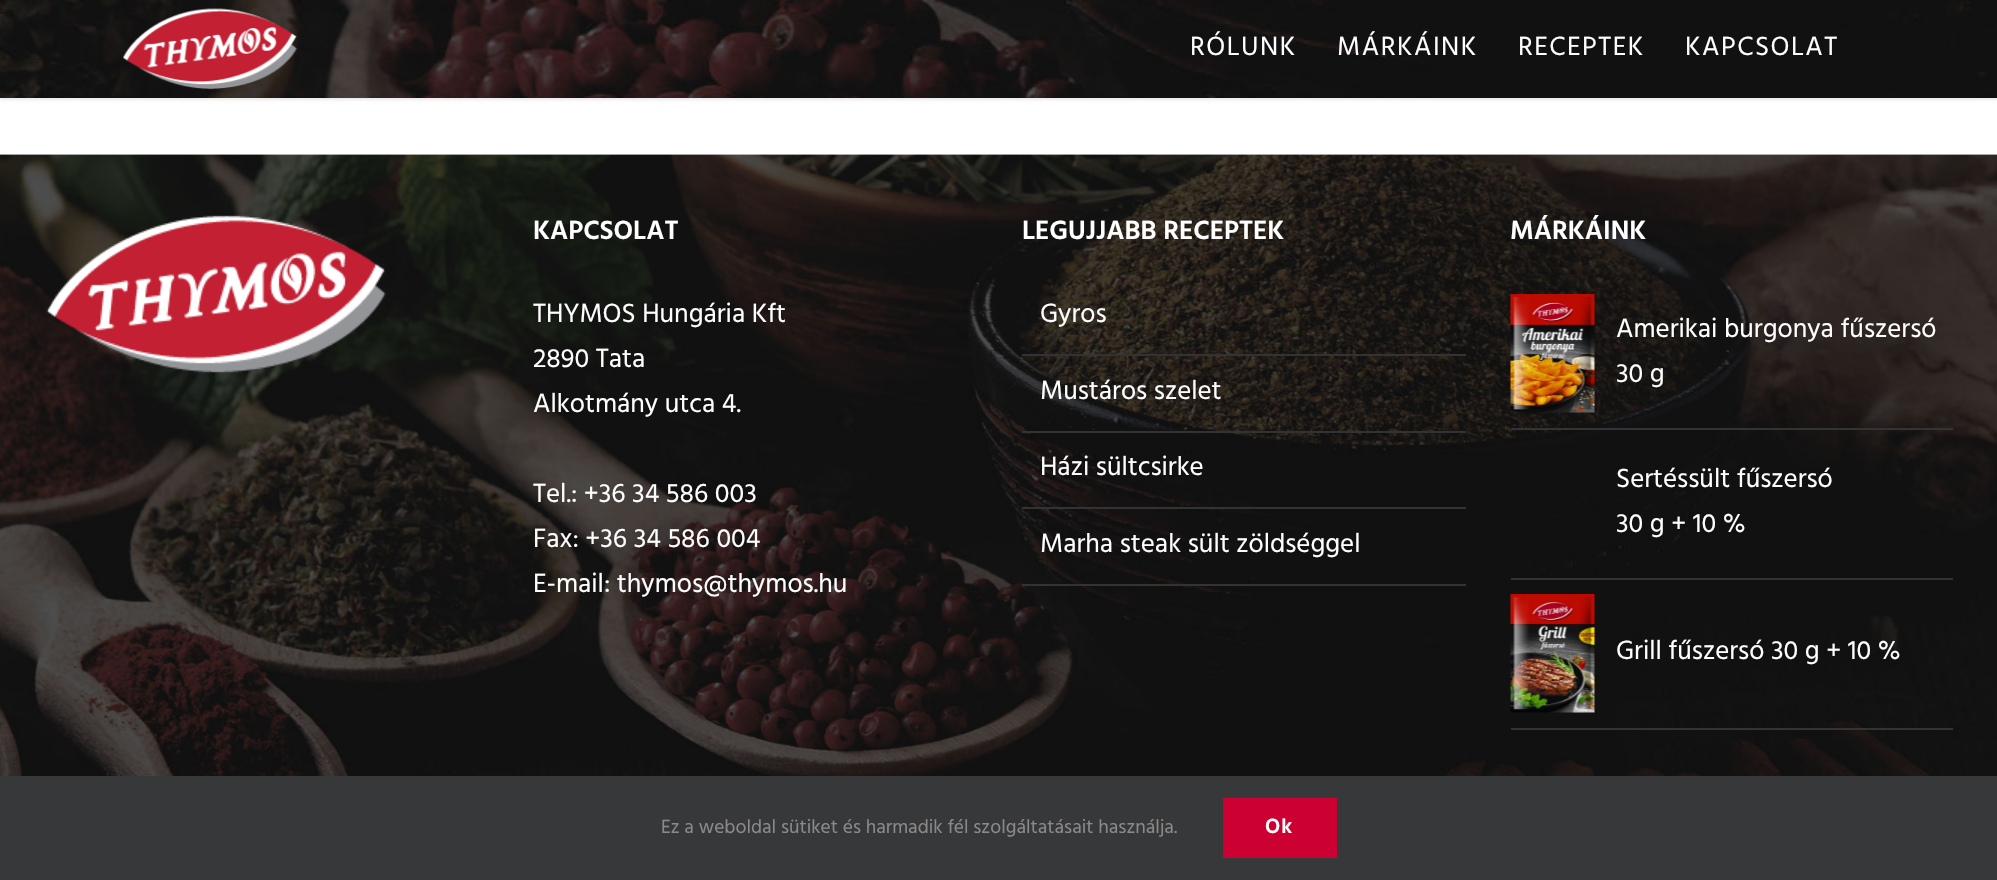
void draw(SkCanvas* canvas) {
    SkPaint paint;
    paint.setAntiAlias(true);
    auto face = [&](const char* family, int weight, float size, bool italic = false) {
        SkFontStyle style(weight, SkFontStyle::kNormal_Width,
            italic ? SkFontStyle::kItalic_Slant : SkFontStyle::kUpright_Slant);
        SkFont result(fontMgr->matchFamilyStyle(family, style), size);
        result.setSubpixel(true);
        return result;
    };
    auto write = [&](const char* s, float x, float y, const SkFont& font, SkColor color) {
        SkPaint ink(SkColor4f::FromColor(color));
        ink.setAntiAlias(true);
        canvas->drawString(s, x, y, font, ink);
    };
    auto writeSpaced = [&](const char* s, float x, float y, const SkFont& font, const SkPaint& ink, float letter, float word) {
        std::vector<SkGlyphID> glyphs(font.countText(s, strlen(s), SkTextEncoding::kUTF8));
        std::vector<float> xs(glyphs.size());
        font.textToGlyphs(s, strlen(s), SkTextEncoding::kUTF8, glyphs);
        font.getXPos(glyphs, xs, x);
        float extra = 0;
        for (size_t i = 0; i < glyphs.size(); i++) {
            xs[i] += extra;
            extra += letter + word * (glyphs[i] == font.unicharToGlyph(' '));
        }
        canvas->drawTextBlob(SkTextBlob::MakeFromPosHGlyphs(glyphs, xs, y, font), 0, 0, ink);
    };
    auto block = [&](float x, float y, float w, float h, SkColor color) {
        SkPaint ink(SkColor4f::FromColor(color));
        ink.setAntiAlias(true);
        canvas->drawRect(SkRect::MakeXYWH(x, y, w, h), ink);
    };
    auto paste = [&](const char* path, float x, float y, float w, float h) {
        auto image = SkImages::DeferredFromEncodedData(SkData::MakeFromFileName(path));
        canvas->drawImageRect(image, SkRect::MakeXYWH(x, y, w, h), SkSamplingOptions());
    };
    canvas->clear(SK_ColorWHITE);
    paint.setColor(SkColorSetARGB(31, 0, 0, 0));
    paint.setMaskFilter(SkMaskFilter::MakeBlur(kNormal_SkBlurStyle, 2));
    canvas->drawRect(SkRect::MakeXYWH(0, 2, 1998, 97), paint);
    paint.setMaskFilter(nullptr);
    paste("pic1.png", 0, 0, 1997, 98);
    paste("pic2.png", 122, 8, 175, 82);
    auto kFont1 = face("Hind", 400, 27);
    paint.setColor(SK_ColorWHITE);
    writeSpaced("RÓLUNK", 1190, 55, kFont1, paint, 1.5f, 0);
    writeSpaced("MÁRKÁINK", 1337, 55, kFont1, paint, 1.5f, 0);
    writeSpaced("RECEPTEK", 1518, 55, kFont1, paint, 1.5f, 0);
    writeSpaced("KAPCSOLAT", 1685, 55, kFont1, paint, 1.5f, 0);
    paste("pic3.png", 0, 154, 1997, 622);
    paste("pic4.png", 46, 215, 340, 158);
    auto kFont2 = face("Hind", 600, 27);
    write("KAPCSOLAT", 533, 239, kFont2, SK_ColorWHITE);
    write("THYMOS Hungária Kft", 533, 322, kFont1, SK_ColorWHITE);
    write("2890 Tata", 533, 367, kFont1, SK_ColorWHITE);
    write("Alkotmány utca 4.", 533, 412, kFont1, SK_ColorWHITE);
    write("Tel.: +36 34 586 003", 533, 502, kFont1, SK_ColorWHITE);
    write("Fax: +36 34 586 004", 533, 547, kFont1, SK_ColorWHITE);
    write("E-mail: thymos@thymos.hu", 533, 592, kFont1, SK_ColorWHITE);
    write("LEGUJJABB RECEPTEK", 1022, 239, kFont2, SK_ColorWHITE);
    block(1022, 354, 444, 2, SkColorSetRGB(51, 51, 51));
    write("Gyros", 1040, 322, kFont1, SK_ColorWHITE);
    block(1022, 431, 444, 2, SkColorSetRGB(51, 51, 51));
    write("Mustáros szelet", 1040, 399, kFont1, SK_ColorWHITE);
    block(1022, 507, 444, 2, SkColorSetRGB(51, 51, 51));
    write("Házi sültcsirke", 1040, 475, kFont1, SK_ColorWHITE);
    block(1022, 584, 444, 2, SkColorSetRGB(51, 51, 51));
    write("Marha steak sült zöldséggel", 1040, 552, kFont1, SK_ColorWHITE);
    write("MÁRKÁINK", 1510, 239, kFont2, SK_ColorWHITE);
    block(1511, 428, 442, 2, SkColorSetRGB(51, 51, 51));
    paste("pic5.png", 1510, 294, 85, 119);
    write("Amerikai burgonya fűszersó", 1616, 337, kFont1, SK_ColorWHITE);
    write("30 g", 1616, 382, kFont1, SK_ColorWHITE);
    block(1511, 578, 442, 2, SkColorSetRGB(51, 51, 51));
    write("Sertéssült fűszersó", 1616, 487, kFont1, SK_ColorWHITE);
    write("30 g + 10 %", 1616, 532, kFont1, SK_ColorWHITE);
    block(1511, 728, 442, 2, SkColorSetRGB(51, 51, 51));
    paste("pic6.png", 1510, 594, 85, 119);
    write("Grill fűszersó 30 g + 10 %", 1616, 659, kFont1, SK_ColorWHITE);
    block(0, 776, 1997, 104, SkColorSetRGB(54, 56, 57));
    auto kFont3 = face("Hind", 400, 19.5f);
    write("Ez a weboldal sütiket és harmadik fél szolgáltatásait használja.", 661, 833, kFont3, SkColorSetRGB(140, 137, 137));
    block(1223, 798, 114, 60, SkColorSetRGB(204, 0, 51));
    auto kFont4 = face("Hind", 600, 21);
    writeSpaced("Ok", 1265, 833, kFont4, paint, 1, 0);
}
